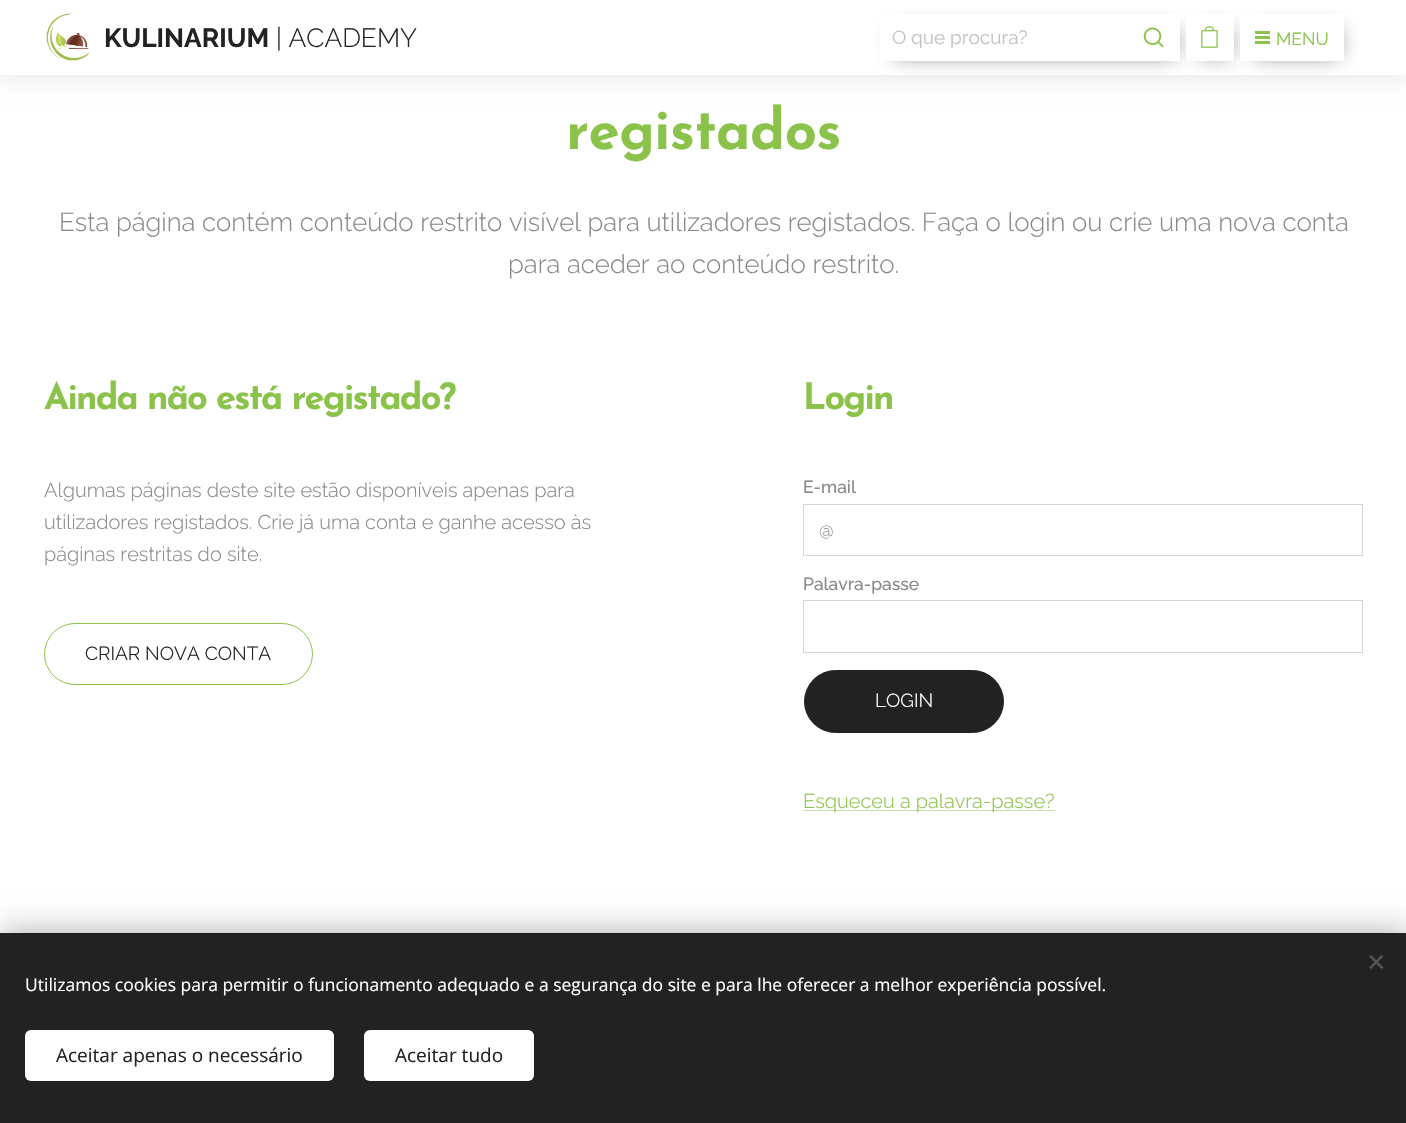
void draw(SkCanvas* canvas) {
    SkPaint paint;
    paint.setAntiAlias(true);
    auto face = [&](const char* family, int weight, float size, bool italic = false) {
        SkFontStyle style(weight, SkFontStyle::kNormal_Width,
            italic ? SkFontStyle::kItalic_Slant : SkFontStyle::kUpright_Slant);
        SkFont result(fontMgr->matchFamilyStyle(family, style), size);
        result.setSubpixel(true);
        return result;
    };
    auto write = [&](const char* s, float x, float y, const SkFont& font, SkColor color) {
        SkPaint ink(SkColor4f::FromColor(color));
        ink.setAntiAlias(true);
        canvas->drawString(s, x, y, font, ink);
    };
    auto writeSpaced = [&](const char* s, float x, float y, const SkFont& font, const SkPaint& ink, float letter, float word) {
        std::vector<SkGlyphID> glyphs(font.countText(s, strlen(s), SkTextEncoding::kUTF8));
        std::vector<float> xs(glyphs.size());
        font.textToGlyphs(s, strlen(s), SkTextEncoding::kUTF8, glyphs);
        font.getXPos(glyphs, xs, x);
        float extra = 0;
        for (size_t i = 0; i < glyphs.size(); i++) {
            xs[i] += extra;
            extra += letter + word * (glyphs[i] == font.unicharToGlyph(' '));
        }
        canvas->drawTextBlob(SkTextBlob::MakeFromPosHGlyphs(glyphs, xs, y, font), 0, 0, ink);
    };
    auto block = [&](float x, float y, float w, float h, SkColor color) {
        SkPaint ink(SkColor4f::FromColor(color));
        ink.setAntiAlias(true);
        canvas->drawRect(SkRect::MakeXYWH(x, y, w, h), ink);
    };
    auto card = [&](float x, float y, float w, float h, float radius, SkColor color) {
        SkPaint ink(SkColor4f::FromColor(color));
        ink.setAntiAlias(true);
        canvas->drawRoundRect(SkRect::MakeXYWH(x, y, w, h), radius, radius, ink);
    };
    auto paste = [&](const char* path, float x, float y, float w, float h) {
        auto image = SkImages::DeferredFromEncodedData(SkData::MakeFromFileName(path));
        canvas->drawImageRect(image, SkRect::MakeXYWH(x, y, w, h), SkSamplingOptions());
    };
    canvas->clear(SK_ColorWHITE);
    paint.setColor(SkColorSetARGB(18, 0, 0, 0));
    paint.setMaskFilter(SkMaskFilter::MakeBlur(kNormal_SkBlurStyle, 9.5f));
    canvas->drawRect(SkRect::MakeXYWH(0, 6, 1406, 75), paint);
    paint.setMaskFilter(nullptr);
    block(0, 0, 1406, 75, SK_ColorWHITE);
    paste("pic1.png", 46, 13, 43, 48);
    auto kFont1 = face("Raleway", 700, 26.25f);
    write("KULINARIUM", 104, 47, kFont1, SkColorSetRGB(34, 34, 34));
    auto kFont2 = face("Raleway", 300, 26.25f);
    write("| ACADEMY", 276, 47, kFont2, SkColorSetRGB(34, 34, 34));
    canvas->save();
    canvas->clipPath(SkPathBuilder(SkPathFillType::kEvenOdd).moveTo(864, 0).lineTo(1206, 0).lineTo(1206, 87).lineTo(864, 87).close().moveTo(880, 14).lineTo(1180, 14).lineTo(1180, 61).lineTo(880, 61).close().detach(), true);
    paint.setColor(SkColorSetARGB(128, 0, 0, 0));
    paint.setMaskFilter(SkMaskFilter::MakeBlur(kNormal_SkBlurStyle, 10));
    canvas->drawRect(SkRect::MakeXYWH(895, 29, 280, 27), paint);
    paint.setMaskFilter(nullptr);
    canvas->restore();
    auto kFont3 = face("Raleway", 400, 19);
    write("O que procura?", 892, 44, kFont3, SkColorSetRGB(195, 195, 195));
    paste("pic2.png", 1143, 27, 21, 21);
    paint.setMaskFilter(SkMaskFilter::MakeBlur(kNormal_SkBlurStyle, 10));
    canvas->drawRect(SkRect::MakeXYWH(1201, 29, 28, 27), paint);
    paint.setMaskFilter(nullptr);
    block(1186, 14, 48, 47, SK_ColorWHITE);
    paste("pic3.png", 1201, 26, 17, 22);
    paint.setMaskFilter(SkMaskFilter::MakeBlur(kNormal_SkBlurStyle, 10));
    canvas->drawRect(SkRect::MakeXYWH(1255, 29, 84, 27), paint);
    paint.setMaskFilter(nullptr);
    block(1240, 14, 104, 47, SK_ColorWHITE);
    block(1255, 36, 15, 3, SkColorSetRGB(139, 195, 74));
    block(1255, 31, 15, 3, SkColorSetRGB(139, 195, 74));
    block(1255, 41, 15, 3, SkColorSetRGB(139, 195, 74));
    auto kFont4 = face("Raleway", 400, 17.5f);
    write("MENU", 1276, 45, kFont4, SkColorSetRGB(139, 195, 74));
    auto kFont5 = face("Josefin Sans", 700, 56.25f);
    paint.setColor(SkColorSetRGB(139, 195, 74));
    writeSpaced("registados", 566, 149, kFont5, paint, -0.5f, 0);
    auto kFont6 = face("Raleway", 300, 25.8f);
    write("Esta página contém conteúdo restrito visível para utilizadores registados. Faça o login ou crie uma nova conta", 59, 231, kFont6, SkColorSetRGB(136, 136, 136));
    write("para aceder ao conteúdo restrito.", 508, 273, kFont6, SkColorSetRGB(136, 136, 136));
    auto kFont7 = face("Josefin Sans", 700, 36.25f);
    writeSpaced("Ainda não está registado?", 44, 409, kFont7, paint, -1.8f, 0);
    auto kFont8 = face("Raleway", 300, 20);
    write("Algumas páginas deste site estão disponíveis apenas para", 44, 497, kFont8, SkColorSetRGB(136, 136, 136));
    write("utilizadores registados. Crie já uma conta e ganhe acesso às", 44, 529, kFont8, SkColorSetRGB(136, 136, 136));
    write("páginas restritas do site.", 44, 561, kFont8, SkColorSetRGB(136, 136, 136));
    paint.setStyle(SkPaint::kStroke_Style);
    paint.setStrokeWidth(1);
    canvas->drawRoundRect(SkRect::MakeXYWH(44.5f, 623.5f, 268, 61), 30.5f, 30.5f, paint);
    auto kFont9 = face("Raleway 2", 300, 19);
    write("CRIAR NOVA CONTA", 85, 660, kFont9, SkColorSetRGB(34, 34, 34));
    paint.setStyle(SkPaint::kFill_Style);
    writeSpaced("Login", 803, 409, kFont7, paint, -1.8f, 0);
    auto kFont10 = face("Raleway", 500, 17.5f);
    write("E-mail", 803, 493, kFont10, SkColorSetRGB(136, 136, 136));
    paint.setStyle(SkPaint::kStroke_Style);
    paint.setColor(SkColorSetRGB(212, 212, 212));
    canvas->drawRect(SkRect::MakeXYWH(803.5f, 504.5f, 559, 51), paint);
    auto kFont11 = face("Raleway", 300, 17.5f);
    write("@", 819, 536, kFont11, SkColorSetRGB(136, 136, 136));
    write("Palavra-passe", 803, 590, kFont10, SkColorSetRGB(136, 136, 136));
    canvas->drawRect(SkRect::MakeXYWH(803.5f, 600.5f, 559, 52), paint);
    paint.setStyle(SkPaint::kFill_Style);
    paint.setColor(SkColorSetRGB(34, 34, 34));
    canvas->drawRoundRect(SkRect::MakeXYWH(804.5f, 670.5f, 199, 62), 31, 31, paint);
    paint.setStyle(SkPaint::kStroke_Style);
    canvas->drawRoundRect(SkRect::MakeXYWH(804.5f, 670.5f, 199, 62), 31, 31, paint);
    write("LOGIN", 875, 707, kFont9, SK_ColorWHITE);
    block(803, 810, 252, 1, SkColorSetRGB(197, 225, 165));
    write("Esqueceu a palavra-passe?", 803, 808, kFont8, SkColorSetRGB(139, 195, 74));
    paint.setStyle(SkPaint::kFill_Style);
    paint.setColor(SkColorSetARGB(84, 0, 0, 0));
    paint.setMaskFilter(SkMaskFilter::MakeBlur(kNormal_SkBlurStyle, 15.5f));
    canvas->drawRect(SkRect::MakeXYWH(0, 933, 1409, 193), paint);
    paint.setMaskFilter(nullptr);
    block(0, 933, 1406, 190, SkColorSetRGB(34, 34, 34));
    paint.setColor(SkColorSetRGB(85, 85, 85));
    canvas->drawPath(SkPathBuilder().moveTo(1369, 967.5f).lineTo(1381.5f, 955).lineTo(1383.5f, 956.5f).lineTo(1371, 969).close().detach(), paint);
    canvas->drawPath(SkPathBuilder().moveTo(1371, 955).lineTo(1383.5f, 967.5f).lineTo(1381.5f, 969).lineTo(1369, 956.5f).close().detach(), paint);
    auto kFont12 = face("Open Sans", 400, 17.5f);
    write("Utilizamos cookies para permitir o funcionamento adequado e a segurança do site e para lhe oferecer a melhor experiência possível.", 25, 991, kFont12, SK_ColorWHITE);
    card(25, 1030, 309, 51, 6, SK_ColorWHITE);
    auto kFont13 = face("Open Sans", 400, 19);
    write("Aceitar apenas o necessário", 56, 1062, kFont13, SkColorSetRGB(34, 34, 34));
    card(364, 1030, 170, 51, 6, SK_ColorWHITE);
    write("Aceitar tudo", 395, 1062, kFont13, SkColorSetRGB(34, 34, 34));
}
